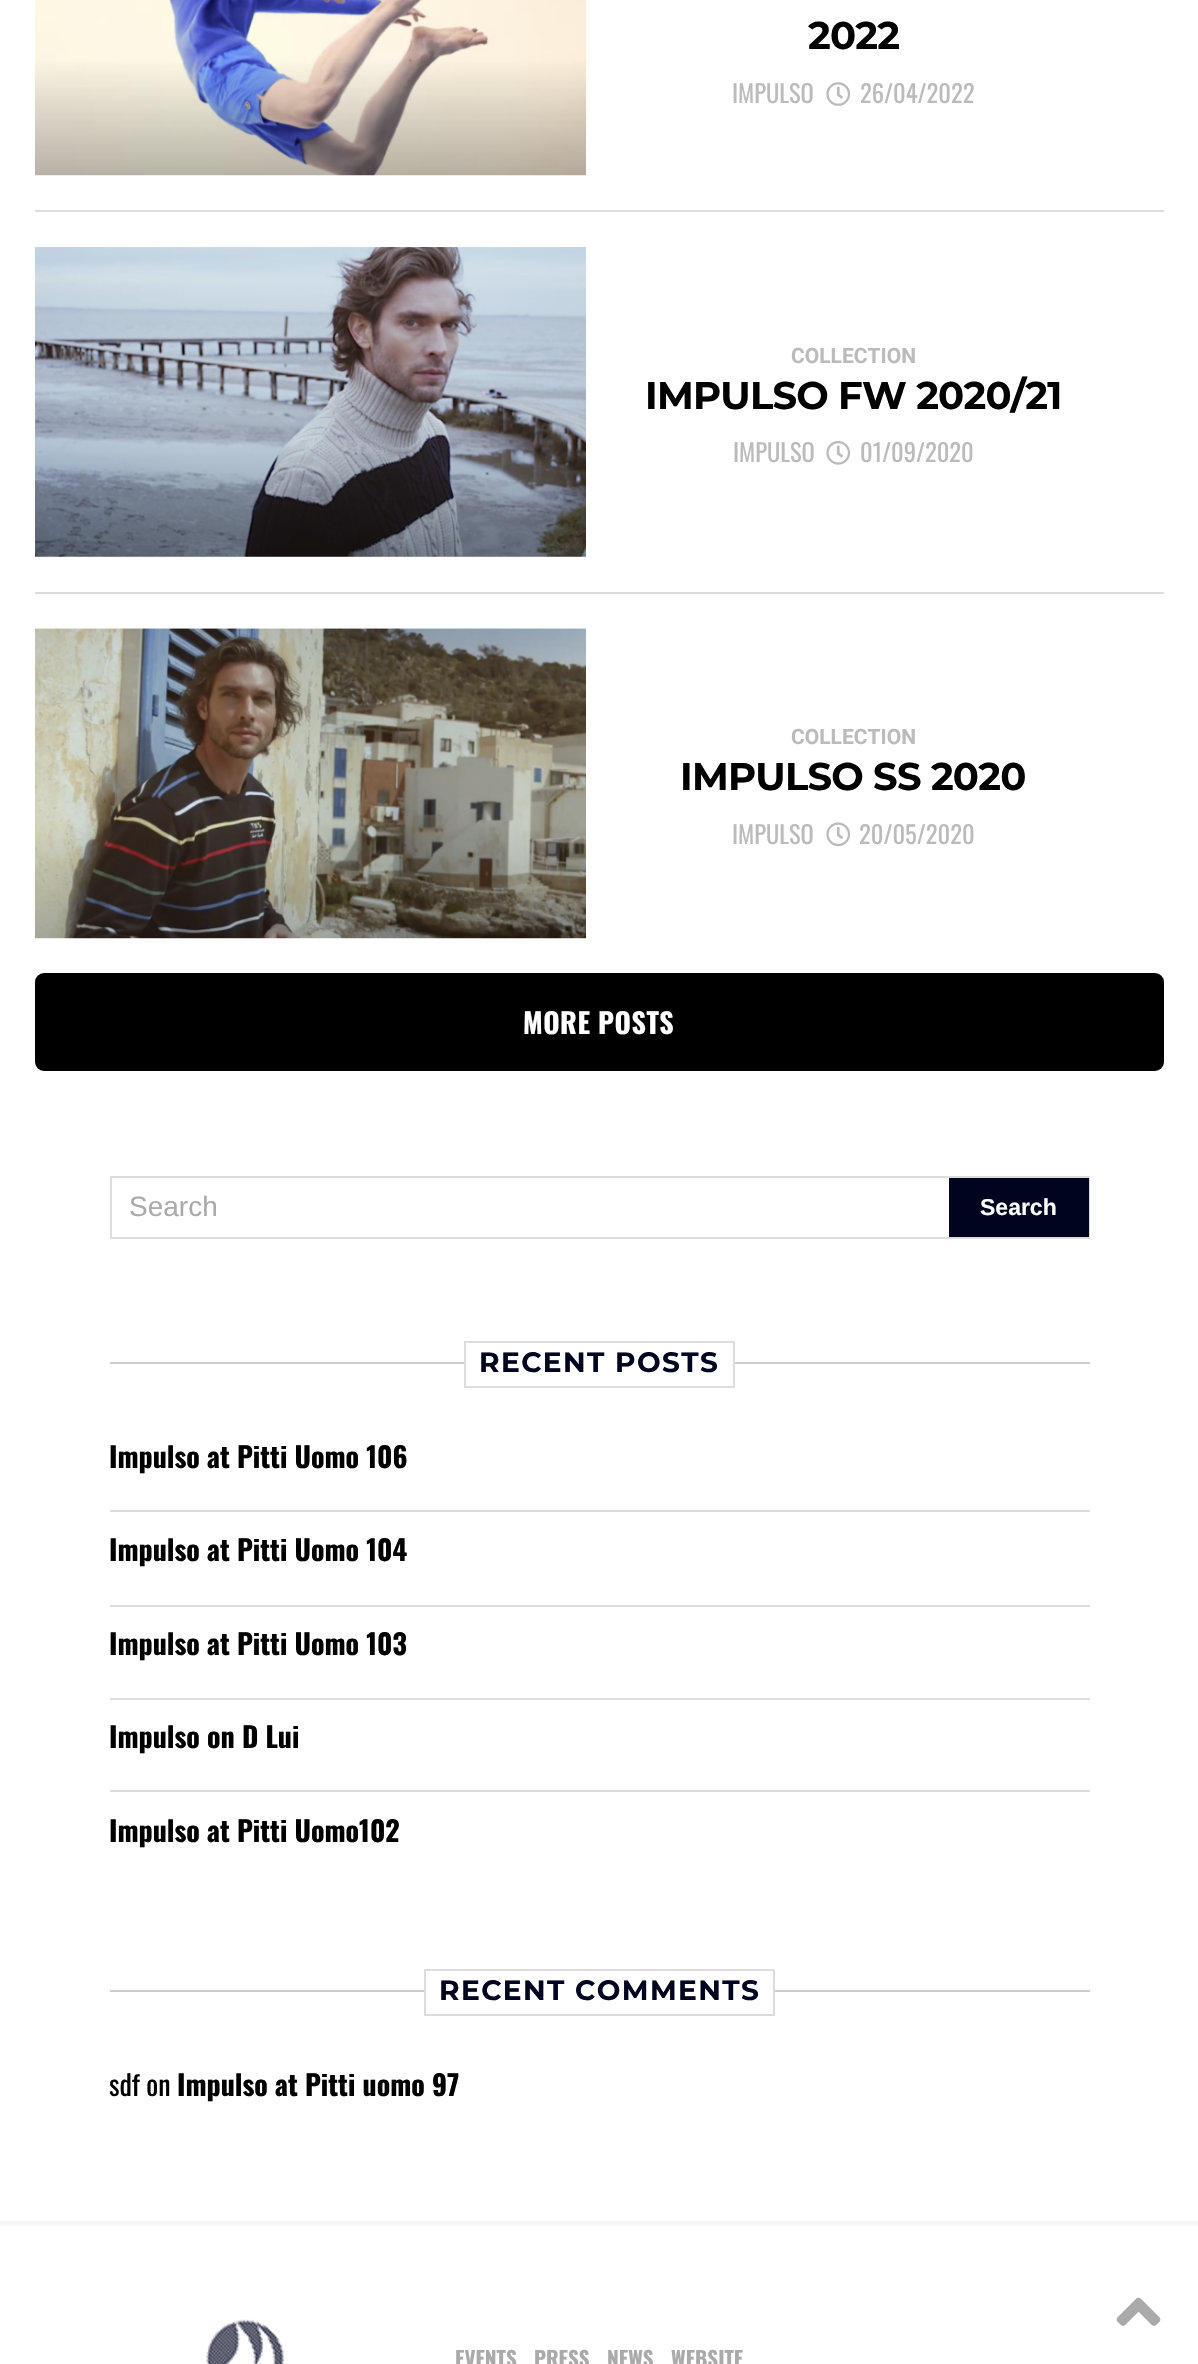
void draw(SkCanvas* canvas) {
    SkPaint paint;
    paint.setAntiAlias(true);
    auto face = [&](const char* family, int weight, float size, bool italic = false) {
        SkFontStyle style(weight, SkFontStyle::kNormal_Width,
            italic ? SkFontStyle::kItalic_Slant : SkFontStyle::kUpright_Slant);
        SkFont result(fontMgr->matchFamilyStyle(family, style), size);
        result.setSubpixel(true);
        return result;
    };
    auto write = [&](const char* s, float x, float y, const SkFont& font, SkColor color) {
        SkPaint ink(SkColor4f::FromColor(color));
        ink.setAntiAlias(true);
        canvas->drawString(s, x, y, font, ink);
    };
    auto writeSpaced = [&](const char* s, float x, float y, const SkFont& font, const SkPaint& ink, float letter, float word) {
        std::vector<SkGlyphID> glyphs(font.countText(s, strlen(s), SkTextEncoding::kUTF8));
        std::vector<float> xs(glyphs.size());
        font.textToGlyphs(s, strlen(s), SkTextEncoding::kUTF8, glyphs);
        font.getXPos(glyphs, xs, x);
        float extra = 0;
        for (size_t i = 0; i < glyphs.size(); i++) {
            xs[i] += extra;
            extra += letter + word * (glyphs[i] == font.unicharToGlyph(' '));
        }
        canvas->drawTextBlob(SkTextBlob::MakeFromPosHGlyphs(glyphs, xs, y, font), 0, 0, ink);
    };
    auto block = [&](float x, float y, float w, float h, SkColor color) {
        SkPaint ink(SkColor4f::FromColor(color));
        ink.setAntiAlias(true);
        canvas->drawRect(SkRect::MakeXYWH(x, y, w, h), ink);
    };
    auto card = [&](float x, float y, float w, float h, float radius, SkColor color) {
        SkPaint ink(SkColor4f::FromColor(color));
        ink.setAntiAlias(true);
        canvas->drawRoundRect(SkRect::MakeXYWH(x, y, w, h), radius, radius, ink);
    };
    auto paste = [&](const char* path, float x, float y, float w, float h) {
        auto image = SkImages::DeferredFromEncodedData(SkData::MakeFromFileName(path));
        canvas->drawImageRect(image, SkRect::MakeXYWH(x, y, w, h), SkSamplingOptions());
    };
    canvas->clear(SK_ColorWHITE);
    paste("pic1.png", 35, 0, 551, 176);
    auto kFont1 = face("Montserrat", 700, 38.5f);
    paint.setColor(SK_ColorBLACK);
    writeSpaced("2022", 808, 49, kFont1, paint, -0.75f, 0);
    auto kFont2 = face("Oswald", 400, 24.5f);
    write("IMPULSO", 732, 103, kFont2, SkColorSetRGB(187, 187, 187));
    paste("pic2.png", 826, 82, 25, 24);
    write("26/04/2022", 860, 103, kFont2, SkColorSetRGB(187, 187, 187));
    block(35, 210, 1129, 2, SkColorSetRGB(221, 221, 221));
    paste("pic3.png", 35, 247, 551, 310);
    auto kFont3 = face("Roboto", 700, 21);
    write("COLLECTION", 791, 363, kFont3, SkColorSetRGB(187, 187, 187));
    writeSpaced("IMPULSO FW 2020/21", 645, 409, kFont1, paint, -0.75f, 0);
    write("IMPULSO", 733, 462, kFont2, SkColorSetRGB(187, 187, 187));
    paste("pic4.png", 826, 441, 25, 24);
    write("01/09/2020", 860, 462, kFont2, SkColorSetRGB(187, 187, 187));
    block(35, 592, 1129, 2, SkColorSetRGB(221, 221, 221));
    paste("pic5.png", 35, 628, 551, 311);
    write("COLLECTION", 791, 744, kFont3, SkColorSetRGB(187, 187, 187));
    writeSpaced("IMPULSO SS 2020", 680, 790, kFont1, paint, -0.75f, 0);
    write("IMPULSO", 732, 844, kFont2, SkColorSetRGB(187, 187, 187));
    paste("pic6.png", 826, 822, 25, 25);
    write("20/05/2020", 859, 844, kFont2, SkColorSetRGB(187, 187, 187));
    card(35, 973, 1129, 98, 9, SK_ColorBLACK);
    auto kFont4 = face("Oswald", 700, 28);
    paint.setColor(SK_ColorWHITE);
    writeSpaced("MORE POSTS", 523, 1034, kFont4, paint, 0.5f, 0);
    paint.setStyle(SkPaint::kStroke_Style);
    paint.setStrokeWidth(2);
    paint.setColor(SkColorSetRGB(221, 221, 221));
    canvas->drawRect(SkRect::MakeXYWH(111, 1177, 978, 61), paint);
    auto kFont5 = face("Liberation Sans", 400, 28);
    write("Search", 129, 1216, kFont5, SkColorSetRGB(170, 170, 170));
    block(949, 1178, 140, 59, SkColorSetRGB(0, 5, 31));
    auto kFont6 = face("Liberation Sans", 700, 23);
    write("Search", 980, 1215, kFont6, SK_ColorWHITE);
    block(110, 1362, 980, 2, SkColorSetRGB(204, 204, 204));
    block(466, 1362, 267, 2, SK_ColorWHITE);
    canvas->drawRect(SkRect::MakeXYWH(465, 1342, 269, 45), paint);
    auto kFont7 = face("Montserrat", 700, 28);
    paint.setStyle(SkPaint::kFill_Style);
    paint.setColor(SkColorSetRGB(0, 5, 31));
    writeSpaced("RECENT POSTS", 479, 1372, kFont7, paint, 1.4f, 0);
    write("Impulso at Pitti Uomo 106", 109, 1468, kFont4, SK_ColorBLACK);
    block(110, 1510, 980, 2, SkColorSetRGB(221, 221, 221));
    write("Impulso at Pitti Uomo 104", 109, 1561, kFont4, SK_ColorBLACK);
    block(110, 1605, 980, 2, SkColorSetRGB(221, 221, 221));
    write("Impulso at Pitti Uomo 103", 109, 1655, kFont4, SK_ColorBLACK);
    block(110, 1698, 980, 2, SkColorSetRGB(221, 221, 221));
    write("Impulso on D Lui", 109, 1748, kFont4, SK_ColorBLACK);
    block(110, 1790, 980, 2, SkColorSetRGB(221, 221, 221));
    write("Impulso at Pitti Uomo102", 109, 1842, kFont4, SK_ColorBLACK);
    block(110, 1990, 980, 2, SkColorSetRGB(204, 204, 204));
    block(426, 1990, 347, 2, SK_ColorWHITE);
    paint.setStyle(SkPaint::kStroke_Style);
    paint.setColor(SkColorSetRGB(221, 221, 221));
    canvas->drawRect(SkRect::MakeXYWH(425, 1970, 349, 45), paint);
    paint.setStyle(SkPaint::kFill_Style);
    paint.setColor(SkColorSetRGB(0, 5, 31));
    writeSpaced("RECENT COMMENTS", 439, 2000, kFont7, paint, 1.4f, 0);
    auto kFont8 = face("Oswald", 400, 28);
    write("sdf on", 109, 2096, kFont8, SK_ColorBLACK);
    write("Impulso at Pitti uomo 97", 177, 2096, kFont4, SK_ColorBLACK);
    block(0, 2221, 1198, 5, SkColorSetRGB(247, 247, 247));
    paste("pic7.png", 206, 2319, 78, 45);
    auto kFont9 = face("Oswald", 700, 21);
    write("EVENTS", 455, 2367, kFont9, SkColorSetRGB(170, 170, 170));
    write("PRESS", 534, 2367, kFont9, SkColorSetRGB(170, 170, 170));
    write("NEWS", 607, 2367, kFont9, SkColorSetRGB(170, 170, 170));
    write("WEBSITE", 671, 2367, kFont9, SkColorSetRGB(170, 170, 170));
    paste("pic8.png", 1116, 2297, 45, 29);
}
